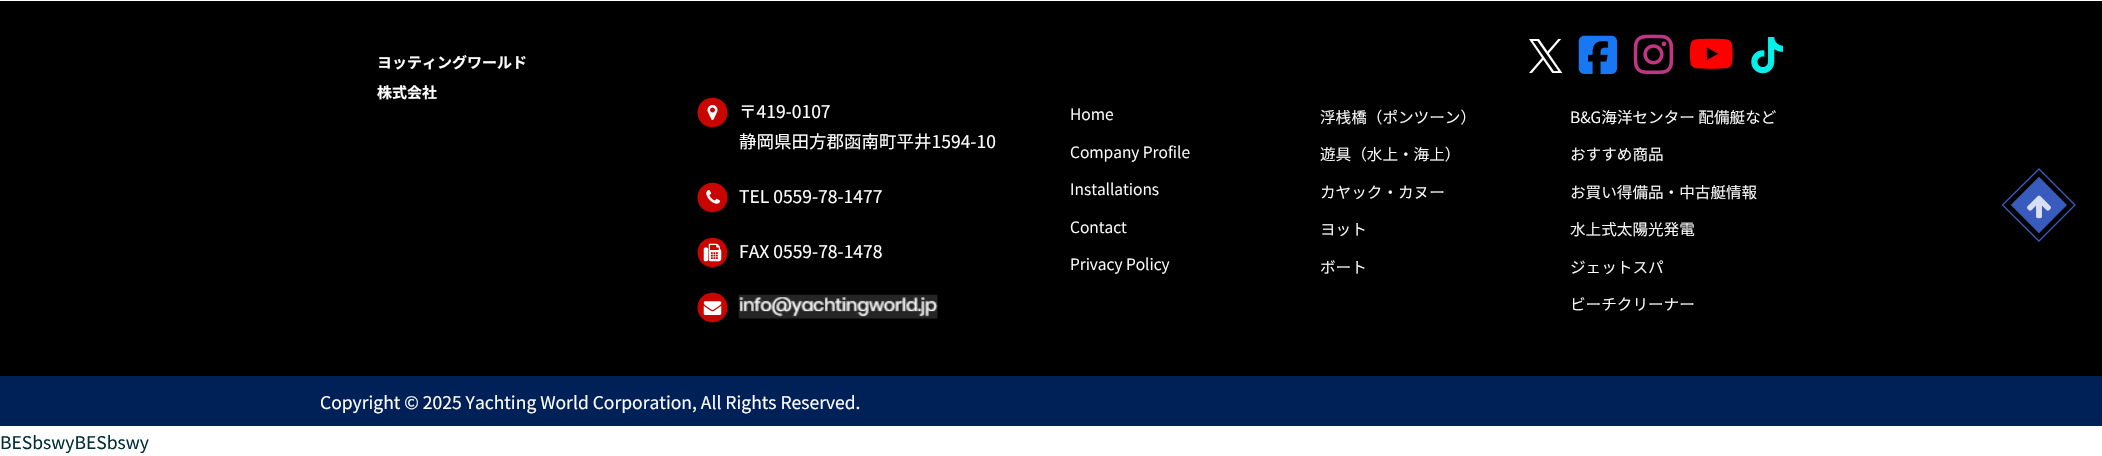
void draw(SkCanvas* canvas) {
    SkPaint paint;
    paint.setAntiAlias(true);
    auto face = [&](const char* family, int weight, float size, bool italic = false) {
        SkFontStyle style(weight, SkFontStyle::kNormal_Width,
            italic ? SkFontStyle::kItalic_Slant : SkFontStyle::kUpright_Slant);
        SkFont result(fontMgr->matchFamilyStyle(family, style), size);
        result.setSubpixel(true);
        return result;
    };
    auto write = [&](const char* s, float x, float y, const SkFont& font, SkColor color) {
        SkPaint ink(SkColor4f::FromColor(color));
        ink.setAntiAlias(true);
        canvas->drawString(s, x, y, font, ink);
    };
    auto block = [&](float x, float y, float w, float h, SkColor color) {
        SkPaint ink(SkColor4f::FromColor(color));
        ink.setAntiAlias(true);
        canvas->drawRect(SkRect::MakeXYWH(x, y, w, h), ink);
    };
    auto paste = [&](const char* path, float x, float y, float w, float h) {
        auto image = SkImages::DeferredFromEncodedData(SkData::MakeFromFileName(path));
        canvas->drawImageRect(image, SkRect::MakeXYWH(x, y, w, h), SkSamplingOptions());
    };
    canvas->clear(SK_ColorWHITE);
    block(0, 1, 2102, 375, SK_ColorBLACK);
    auto kFont1 = face("Noto Sans JP", 700, 15);
    write("ヨッティングワールド", 377, 68, kFont1, SK_ColorWHITE);
    write("株式会社", 377, 98, kFont1, SK_ColorWHITE);
    paint.setColor(SkColorSetRGB(201, 5, 0));
    canvas->drawPath(SkPathBuilder().moveTo(725.5f, 105).cubicTo(727, 107.5f, 727.5f, 110.5f, 727.5f, 113.5f).cubicTo(726.5f, 128, 707, 132.5f, 699.5f, 120).cubicTo(698, 117.5f, 697.5f, 114.5f, 697.5f, 111.5f).cubicTo(698.5f, 97, 718, 92.5f, 725.5f, 105).close().detach(), paint);
    paste("pic1.png", 707, 105, 11, 15);
    auto kFont2 = face("Noto Sans JP", 400, 17.5f);
    write("〒419-0107", 739, 118, kFont2, SK_ColorWHITE);
    write("静岡県田方郡函南町平井1594-10", 739, 148, kFont2, SK_ColorWHITE);
    canvas->drawPath(SkPathBuilder().moveTo(725.5f, 190).cubicTo(727, 192.5f, 727.5f, 195.5f, 727.5f, 198.5f).cubicTo(726.5f, 213, 707, 217.5f, 699.5f, 205).cubicTo(698, 202.5f, 697.5f, 199.5f, 697.5f, 196.5f).cubicTo(698.5f, 182, 718, 177.5f, 725.5f, 190).close().detach(), paint);
    paste("pic2.png", 706, 190, 14, 14);
    write("TEL 0559-78-1477", 739, 203, kFont2, SK_ColorWHITE);
    canvas->drawPath(SkPathBuilder().moveTo(725.5f, 245).cubicTo(727, 247.5f, 727.5f, 250.5f, 727.5f, 253.5f).cubicTo(726.5f, 268, 707, 272.5f, 699.5f, 260).cubicTo(698, 257.5f, 697.5f, 254.5f, 697.5f, 251.5f).cubicTo(698.5f, 237, 718, 232.5f, 725.5f, 245).close().detach(), paint);
    paste("pic3.png", 703, 243, 19, 19);
    write("FAX 0559-78-1478", 739, 258, kFont2, SK_ColorWHITE);
    canvas->drawPath(SkPathBuilder().moveTo(725.5f, 300).cubicTo(727, 302.5f, 727.5f, 305.5f, 727.5f, 308.5f).cubicTo(726.5f, 323, 707, 327.5f, 699.5f, 315).cubicTo(698, 312.5f, 697.5f, 309.5f, 697.5f, 306.5f).cubicTo(698.5f, 292, 718, 287.5f, 725.5f, 300).close().detach(), paint);
    paste("pic4.png", 703, 301, 19, 14);
    paste("pic5.png", 738, 294, 200, 25);
    auto kFont3 = face("Noto Sans JP", 300, 15.6f);
    write("Home", 1070, 120, kFont3, SK_ColorWHITE);
    write("Company Profile", 1070, 158, kFont3, SK_ColorWHITE);
    write("Installations", 1070, 195, kFont3, SK_ColorWHITE);
    write("Contact", 1070, 233, kFont3, SK_ColorWHITE);
    write("Privacy Policy", 1070, 270, kFont3, SK_ColorWHITE);
    paste("pic6.png", 1529, 39, 34, 34);
    paste("pic7.png", 1578, 35, 40, 39);
    paste("pic8.png", 1633, 34, 41, 41);
    paste("pic9.png", 1689, 38, 44, 31);
    paste("pic10.png", 1751, 37, 32, 37);
    write("浮桟橋（ポンツーン）", 1320, 123, kFont3, SK_ColorWHITE);
    write("遊具（水上・海上）", 1320, 160, kFont3, SK_ColorWHITE);
    write("カヤック・カヌー", 1320, 198, kFont3, SK_ColorWHITE);
    write("ヨット", 1320, 235, kFont3, SK_ColorWHITE);
    write("ボート", 1320, 273, kFont3, SK_ColorWHITE);
    write("B&G海洋センター 配備艇など", 1570, 123, kFont3, SK_ColorWHITE);
    write("おすすめ商品", 1570, 160, kFont3, SK_ColorWHITE);
    write("お買い得備品・中古艇情報", 1570, 198, kFont3, SK_ColorWHITE);
    write("水上式太陽光発電", 1570, 235, kFont3, SK_ColorWHITE);
    write("ジェットスパ", 1570, 273, kFont3, SK_ColorWHITE);
    write("ビーチクリーナー", 1570, 310, kFont3, SK_ColorWHITE);
    block(0, 376, 2102, 50, SkColorSetRGB(0, 33, 87));
    write("Copyright © 2025 Yachting World Corporation, All Rights Reserved.", 320, 409, kFont2, SK_ColorWHITE);
    paint.setColor(SkColorSetRGB(57, 91, 189));
    canvas->drawPath(SkPathBuilder().moveTo(2039, 177).lineTo(2067, 205).lineTo(2039, 233).lineTo(2011, 205).close().detach(), paint);
    paint.setStyle(SkPaint::kStroke_Style);
    paint.setStrokeWidth(1.3f);
    canvas->drawPath(SkPathBuilder().moveTo(2039, 178).lineTo(2065.5f, 205).lineTo(2039, 232).lineTo(2012, 205).close().detach(), paint);
    canvas->drawPath(SkPathBuilder().moveTo(2039, 169).lineTo(2075, 205).lineTo(2039, 241).lineTo(2002.5f, 205).close().detach(), paint);
    paste("pic11.png", 2027, 195, 24, 24);
    write("BESbswyBESbswy", 0, 449, kFont2, SkColorSetRGB(0, 47, 56));
}
